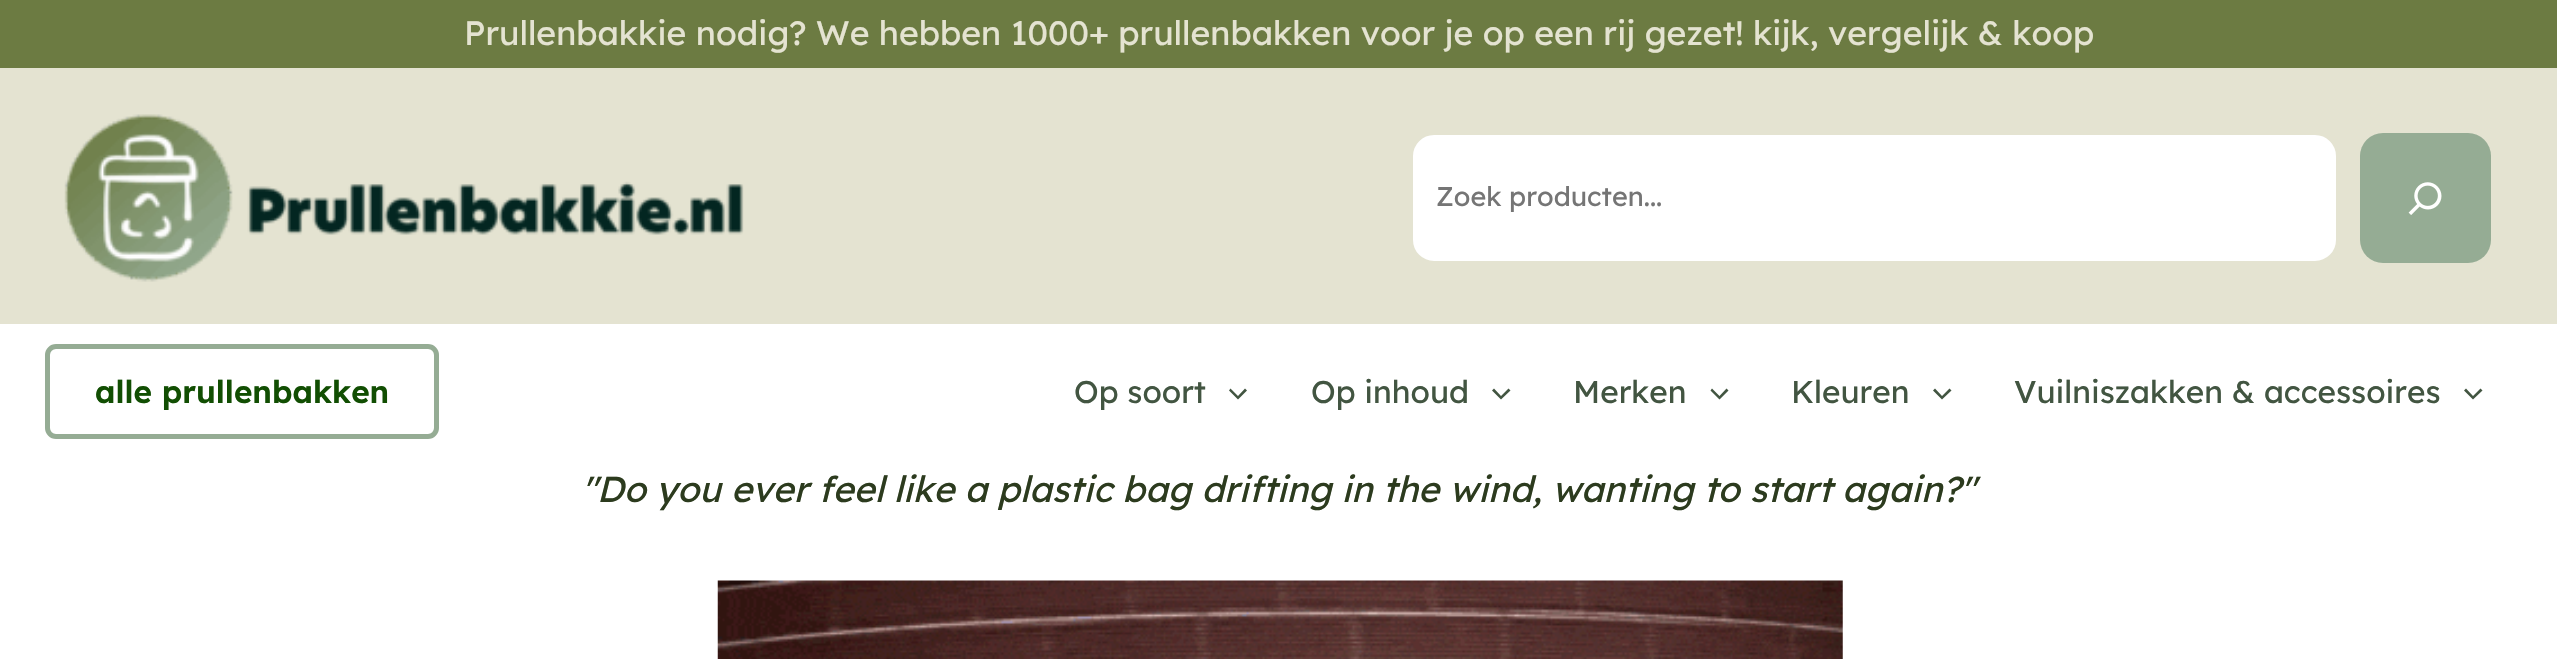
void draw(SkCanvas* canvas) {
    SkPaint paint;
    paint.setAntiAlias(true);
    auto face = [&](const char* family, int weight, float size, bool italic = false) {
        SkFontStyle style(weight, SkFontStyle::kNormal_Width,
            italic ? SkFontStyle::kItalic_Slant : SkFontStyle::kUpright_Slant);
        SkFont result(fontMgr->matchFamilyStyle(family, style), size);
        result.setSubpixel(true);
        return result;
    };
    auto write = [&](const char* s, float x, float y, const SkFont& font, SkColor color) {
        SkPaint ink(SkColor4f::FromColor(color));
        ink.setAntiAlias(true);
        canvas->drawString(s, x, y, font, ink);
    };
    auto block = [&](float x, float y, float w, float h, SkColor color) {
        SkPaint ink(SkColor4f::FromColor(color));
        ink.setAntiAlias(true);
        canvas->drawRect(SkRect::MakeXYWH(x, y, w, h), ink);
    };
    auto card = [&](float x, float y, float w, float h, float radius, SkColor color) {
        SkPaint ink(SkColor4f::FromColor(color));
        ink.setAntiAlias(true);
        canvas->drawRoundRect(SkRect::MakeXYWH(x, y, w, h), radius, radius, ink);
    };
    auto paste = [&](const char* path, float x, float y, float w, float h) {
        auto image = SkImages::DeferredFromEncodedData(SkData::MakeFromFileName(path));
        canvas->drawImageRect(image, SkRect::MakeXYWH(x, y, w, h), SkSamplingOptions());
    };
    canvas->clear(SK_ColorWHITE);
    block(0, 0, 2557, 68, SkColorSetRGB(108, 123, 66));
    block(0, 68, 2557, 256, SkColorSetRGB(228, 227, 209));
    auto kFont1 = face("Lexend", 400, 33.75f);
    write("Prullenbakkie nodig? We hebben 1000+ prullenbakken voor je op een rij gezet! kijk, vergelijk & koop", 464, 45, kFont1, SkColorSetRGB(228, 227, 209));
    paste("pic1.png", 64, 114, 680, 168);
    paint.setColor(SK_ColorWHITE);
    canvas->drawRoundRect(SkRect::MakeXYWH(1412, 134, 925, 128), 22, 22, paint);
    paint.setStyle(SkPaint::kStroke_Style);
    paint.setStrokeWidth(2);
    paint.setColor(SkColorSetRGB(228, 227, 209));
    canvas->drawRoundRect(SkRect::MakeXYWH(1412, 134, 925, 128), 22, 22, paint);
    auto kFont2 = face("Lexend", 400, 27);
    write("Zoek producten...", 1436, 206, kFont2, SkColorSetRGB(117, 117, 117));
    card(2360, 133, 131, 130, 23, SkColorSetRGB(149, 172, 148));
    paste("pic2.png", 2408, 182, 34, 33);
    paint.setStrokeWidth(5);
    paint.setColor(SkColorSetRGB(149, 172, 148));
    canvas->drawRoundRect(SkRect::MakeXYWH(47.5f, 346.5f, 389, 90), 8.5f, 8.5f, paint);
    auto kFont3 = face("Lexend", 600, 31.5f);
    write("alle prullenbakken", 95, 403, kFont3, SkColorSetRGB(17, 78, 2));
    auto kFont4 = face("Lexend", 400, 31.5f);
    write("Op soort", 1074, 403, kFont4, SkColorSetRGB(66, 85, 65));
    paint.setStyle(SkPaint::kFill_Style);
    paint.setColor(SkColorSetRGB(66, 85, 65));
    canvas->drawPath(SkPathBuilder().moveTo(1229, 390.5f).lineTo(1238, 399.5f).lineTo(1247, 390.5f).lineTo(1245, 388.5f).lineTo(1238, 396).lineTo(1230.5f, 388.5f).close().detach(), paint);
    write("Op inhoud", 1311, 403, kFont4, SkColorSetRGB(66, 85, 65));
    canvas->drawPath(SkPathBuilder().moveTo(1492, 390.5f).lineTo(1501, 399.5f).lineTo(1510.5f, 390.5f).lineTo(1508.5f, 388.5f).lineTo(1501, 396).lineTo(1494, 388.5f).close().detach(), paint);
    write("Merken", 1573, 403, kFont4, SkColorSetRGB(66, 85, 65));
    canvas->drawPath(SkPathBuilder().moveTo(1710.5f, 390.5f).lineTo(1719.5f, 399.5f).lineTo(1728.5f, 390.5f).lineTo(1726.5f, 388.5f).lineTo(1719.5f, 396).lineTo(1712, 388.5f).close().detach(), paint);
    write("Kleuren", 1791, 403, kFont4, SkColorSetRGB(66, 85, 65));
    canvas->drawPath(SkPathBuilder().moveTo(1933, 390.5f).lineTo(1942, 399.5f).lineTo(1951.5f, 390.5f).lineTo(1949.5f, 388.5f).lineTo(1942, 396).lineTo(1935, 388.5f).close().detach(), paint);
    write("Vuilniszakken & accessoires", 2014, 403, kFont4, SkColorSetRGB(66, 85, 65));
    canvas->drawPath(SkPathBuilder().moveTo(2464, 390.5f).lineTo(2473, 399.5f).lineTo(2482.5f, 390.5f).lineTo(2480.5f, 388.5f).lineTo(2473, 396).lineTo(2466, 388.5f).close().detach(), paint);
    auto kFont5 = face("Lexend", 400, 36, true);
    write("\"Do you ever feel like a plastic bag drifting in the wind, wanting to start again?\"", 582, 502, kFont5, SkColorSetRGB(44, 59, 30));
    paste("pic3.png", 717, 580, 1126, 79);
}
